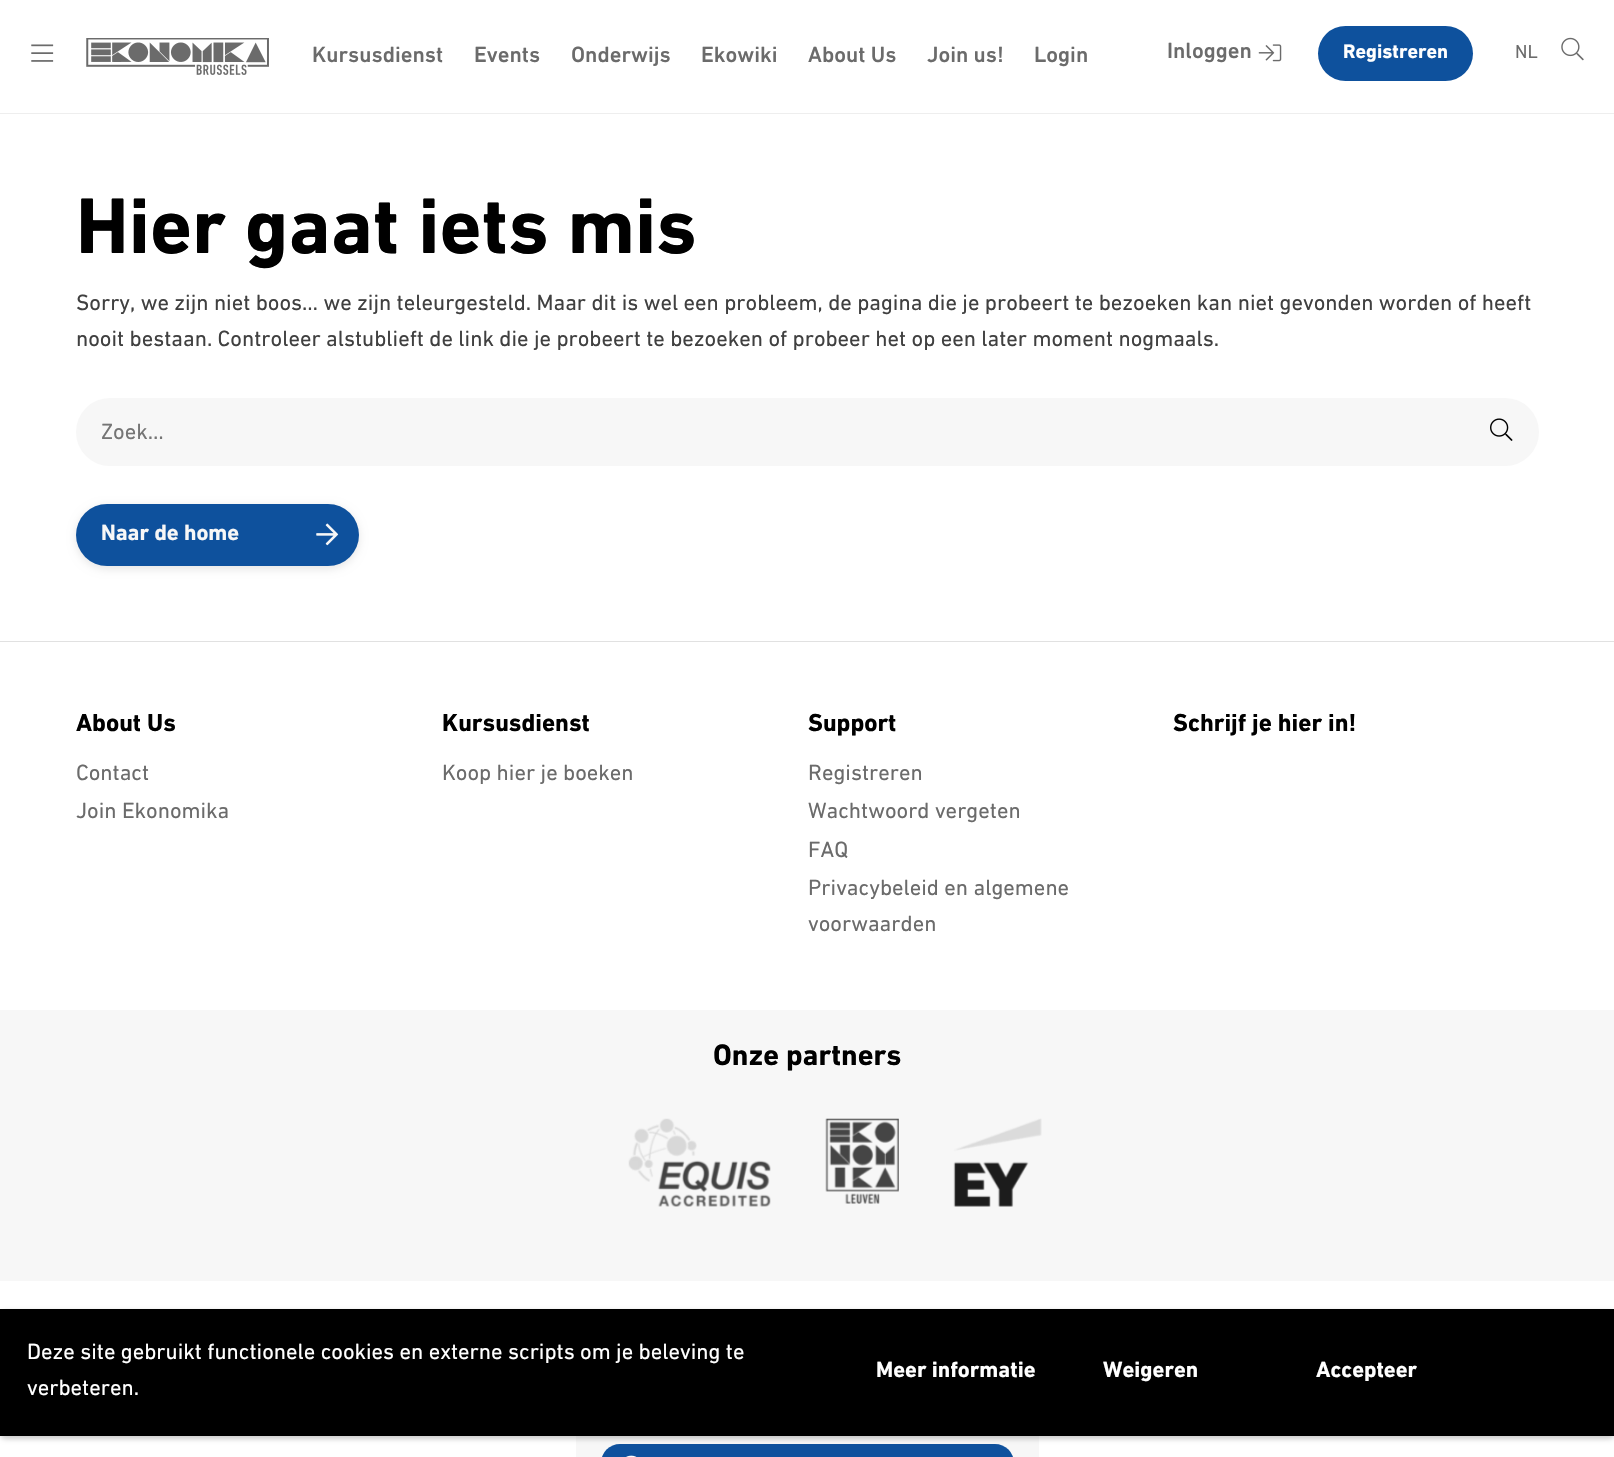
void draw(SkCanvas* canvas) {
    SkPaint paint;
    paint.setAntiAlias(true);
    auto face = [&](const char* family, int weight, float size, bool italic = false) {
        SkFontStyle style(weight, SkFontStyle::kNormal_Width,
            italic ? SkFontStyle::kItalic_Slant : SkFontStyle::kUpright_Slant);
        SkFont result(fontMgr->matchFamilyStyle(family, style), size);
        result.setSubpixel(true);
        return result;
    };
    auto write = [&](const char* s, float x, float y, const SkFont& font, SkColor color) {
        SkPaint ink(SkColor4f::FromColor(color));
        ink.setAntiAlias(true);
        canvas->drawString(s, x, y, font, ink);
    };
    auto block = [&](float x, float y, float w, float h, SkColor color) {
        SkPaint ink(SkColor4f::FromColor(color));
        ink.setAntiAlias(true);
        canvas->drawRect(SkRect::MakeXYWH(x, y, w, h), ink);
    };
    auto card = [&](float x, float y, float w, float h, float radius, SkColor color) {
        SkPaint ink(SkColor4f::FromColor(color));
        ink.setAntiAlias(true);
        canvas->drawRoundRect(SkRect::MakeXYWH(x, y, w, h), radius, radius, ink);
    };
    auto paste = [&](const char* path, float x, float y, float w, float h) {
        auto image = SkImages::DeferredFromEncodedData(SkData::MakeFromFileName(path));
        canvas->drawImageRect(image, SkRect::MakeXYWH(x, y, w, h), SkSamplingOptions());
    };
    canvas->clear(SK_ColorWHITE);
    block(0, 113, 1614, 1, SkColorSetRGB(238, 238, 238));
    paste("pic1.png", 31, 44, 23, 18);
    paste("pic2.png", 86, 38, 183, 37);
    auto kFont1 = face("DIN Next", 500, 22.5f);
    write("Kursusdienst", 312, 62, kFont1, SkColorSetRGB(107, 107, 107));
    write("Events", 474, 62, kFont1, SkColorSetRGB(107, 107, 107));
    write("Onderwijs", 571, 62, kFont1, SkColorSetRGB(107, 107, 107));
    write("Ekowiki", 701, 62, kFont1, SkColorSetRGB(107, 107, 107));
    write("About Us", 808, 62, kFont1, SkColorSetRGB(107, 107, 107));
    write("Join us!", 927, 62, kFont1, SkColorSetRGB(107, 107, 107));
    write("Login", 1034, 62, kFont1, SkColorSetRGB(107, 107, 107));
    write("Inloggen", 1167, 58, kFont1, SkColorSetRGB(107, 107, 107));
    paste("pic3.png", 1258, 44, 24, 18);
    card(1318, 26, 155, 55, 27.5f, SkColorSetRGB(14, 81, 157));
    auto kFont2 = face("DIN Next", 700, 20);
    write("Registreren", 1343, 58, kFont2, SK_ColorWHITE);
    auto kFont3 = face("DIN Next", 400, 19);
    write("NL", 1515, 58, kFont3, SkColorSetRGB(107, 107, 107));
    paste("pic4.png", 1561, 37, 23, 24);
    auto kFont4 = face("DIN Next", 700, 80);
    write("Hier gaat iets mis", 76, 253, kFont4, SK_ColorBLACK);
    auto kFont5 = face("DIN Next", 400, 22.5f);
    write("Sorry, we zijn niet boos… we zijn teleurgesteld. Maar dit is wel een probleem, de pagina die je probeert te bezoeken kan niet gevonden worden of heeft", 76, 310, kFont5, SkColorSetRGB(64, 64, 64));
    write("nooit bestaan. Controleer alstublieft de link die je probeert te bezoeken of probeer het op een later moment nogmaals.", 76, 346, kFont5, SkColorSetRGB(64, 64, 64));
    card(76, 398, 1463, 68, 34, SkColorSetRGB(247, 247, 247));
    write("Zoek…", 101, 439, kFont5, SkColorSetRGB(117, 117, 117));
    paste("pic5.png", 1490, 418, 23, 23);
    paint.setColor(SkColorSetARGB(26, 0, 0, 0));
    paint.setMaskFilter(SkMaskFilter::MakeBlur(kNormal_SkBlurStyle, 4));
    canvas->drawRoundRect(SkRect::MakeXYWH(76, 506, 283, 63), 31.5f, 31.5f, paint);
    paint.setMaskFilter(nullptr);
    card(76, 504, 283, 62, 31, SkColorSetRGB(14, 81, 157));
    auto kFont6 = face("DIN Next", 700, 22.5f);
    write("Naar de home", 101, 540, kFont6, SkColorSetRGB(247, 247, 247));
    paste("pic6.png", 316, 523, 23, 23);
    block(0, 641, 1614, 1, SkColorSetRGB(225, 225, 225));
    auto kFont7 = face("DIN Next", 700, 25);
    write("About Us", 76, 731, kFont7, SK_ColorBLACK);
    write("Contact", 76, 780, kFont5, SkColorSetRGB(107, 107, 107));
    write("Join Ekonomika", 76, 818, kFont5, SkColorSetRGB(107, 107, 107));
    write("Kursusdienst", 442, 731, kFont7, SK_ColorBLACK);
    write("Koop hier je boeken", 442, 780, kFont5, SkColorSetRGB(107, 107, 107));
    write("Support", 808, 731, kFont7, SK_ColorBLACK);
    write("Registreren", 808, 780, kFont5, SkColorSetRGB(107, 107, 107));
    write("Wachtwoord vergeten", 808, 818, kFont5, SkColorSetRGB(107, 107, 107));
    write("FAQ", 808, 857, kFont5, SkColorSetRGB(107, 107, 107));
    write("Privacybeleid en algemene", 808, 895, kFont5, SkColorSetRGB(107, 107, 107));
    write("voorwaarden", 808, 931, kFont5, SkColorSetRGB(107, 107, 107));
    write("Schrijf je hier in!", 1173, 731, kFont7, SK_ColorBLACK);
    block(0, 1010, 1614, 271, SkColorSetRGB(247, 247, 247));
    auto kFont8 = face("DIN Next", 700, 30);
    write("Onze partners", 713, 1065, kFont8, SK_ColorBLACK);
    paste("pic7.png", 628, 1118, 143, 89);
    paste("pic8.png", 825, 1118, 74, 86);
    paste("pic9.png", 953, 1118, 89, 89);
    block(576, 1436, 463, 21, SkColorSetRGB(247, 247, 247));
    card(601, 1444, 413, 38, 25, SkColorSetRGB(14, 81, 157));
    paste("pic10.png", 626, 1455, 11, 2);
    paint.setColor(SkColorSetARGB(51, 0, 0, 0));
    paint.setMaskFilter(SkMaskFilter::MakeBlur(kNormal_SkBlurStyle, 2.5f));
    canvas->drawRoundRect(SkRect::MakeXYWH(0, 1311, 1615, 128), 6, 6, paint);
    paint.setMaskFilter(nullptr);
    block(0, 1309, 1614, 127, SK_ColorBLACK);
    write("Deze site gebruikt functionele cookies en externe scripts om je beleving te", 27, 1359, kFont5, SK_ColorWHITE);
    write("verbeteren.", 27, 1395, kFont5, SK_ColorWHITE);
    write("Meer informatie", 876, 1377, kFont6, SK_ColorWHITE);
    write("Weigeren", 1103, 1377, kFont6, SK_ColorWHITE);
    write("Accepteer", 1316, 1377, kFont6, SK_ColorWHITE);
}
